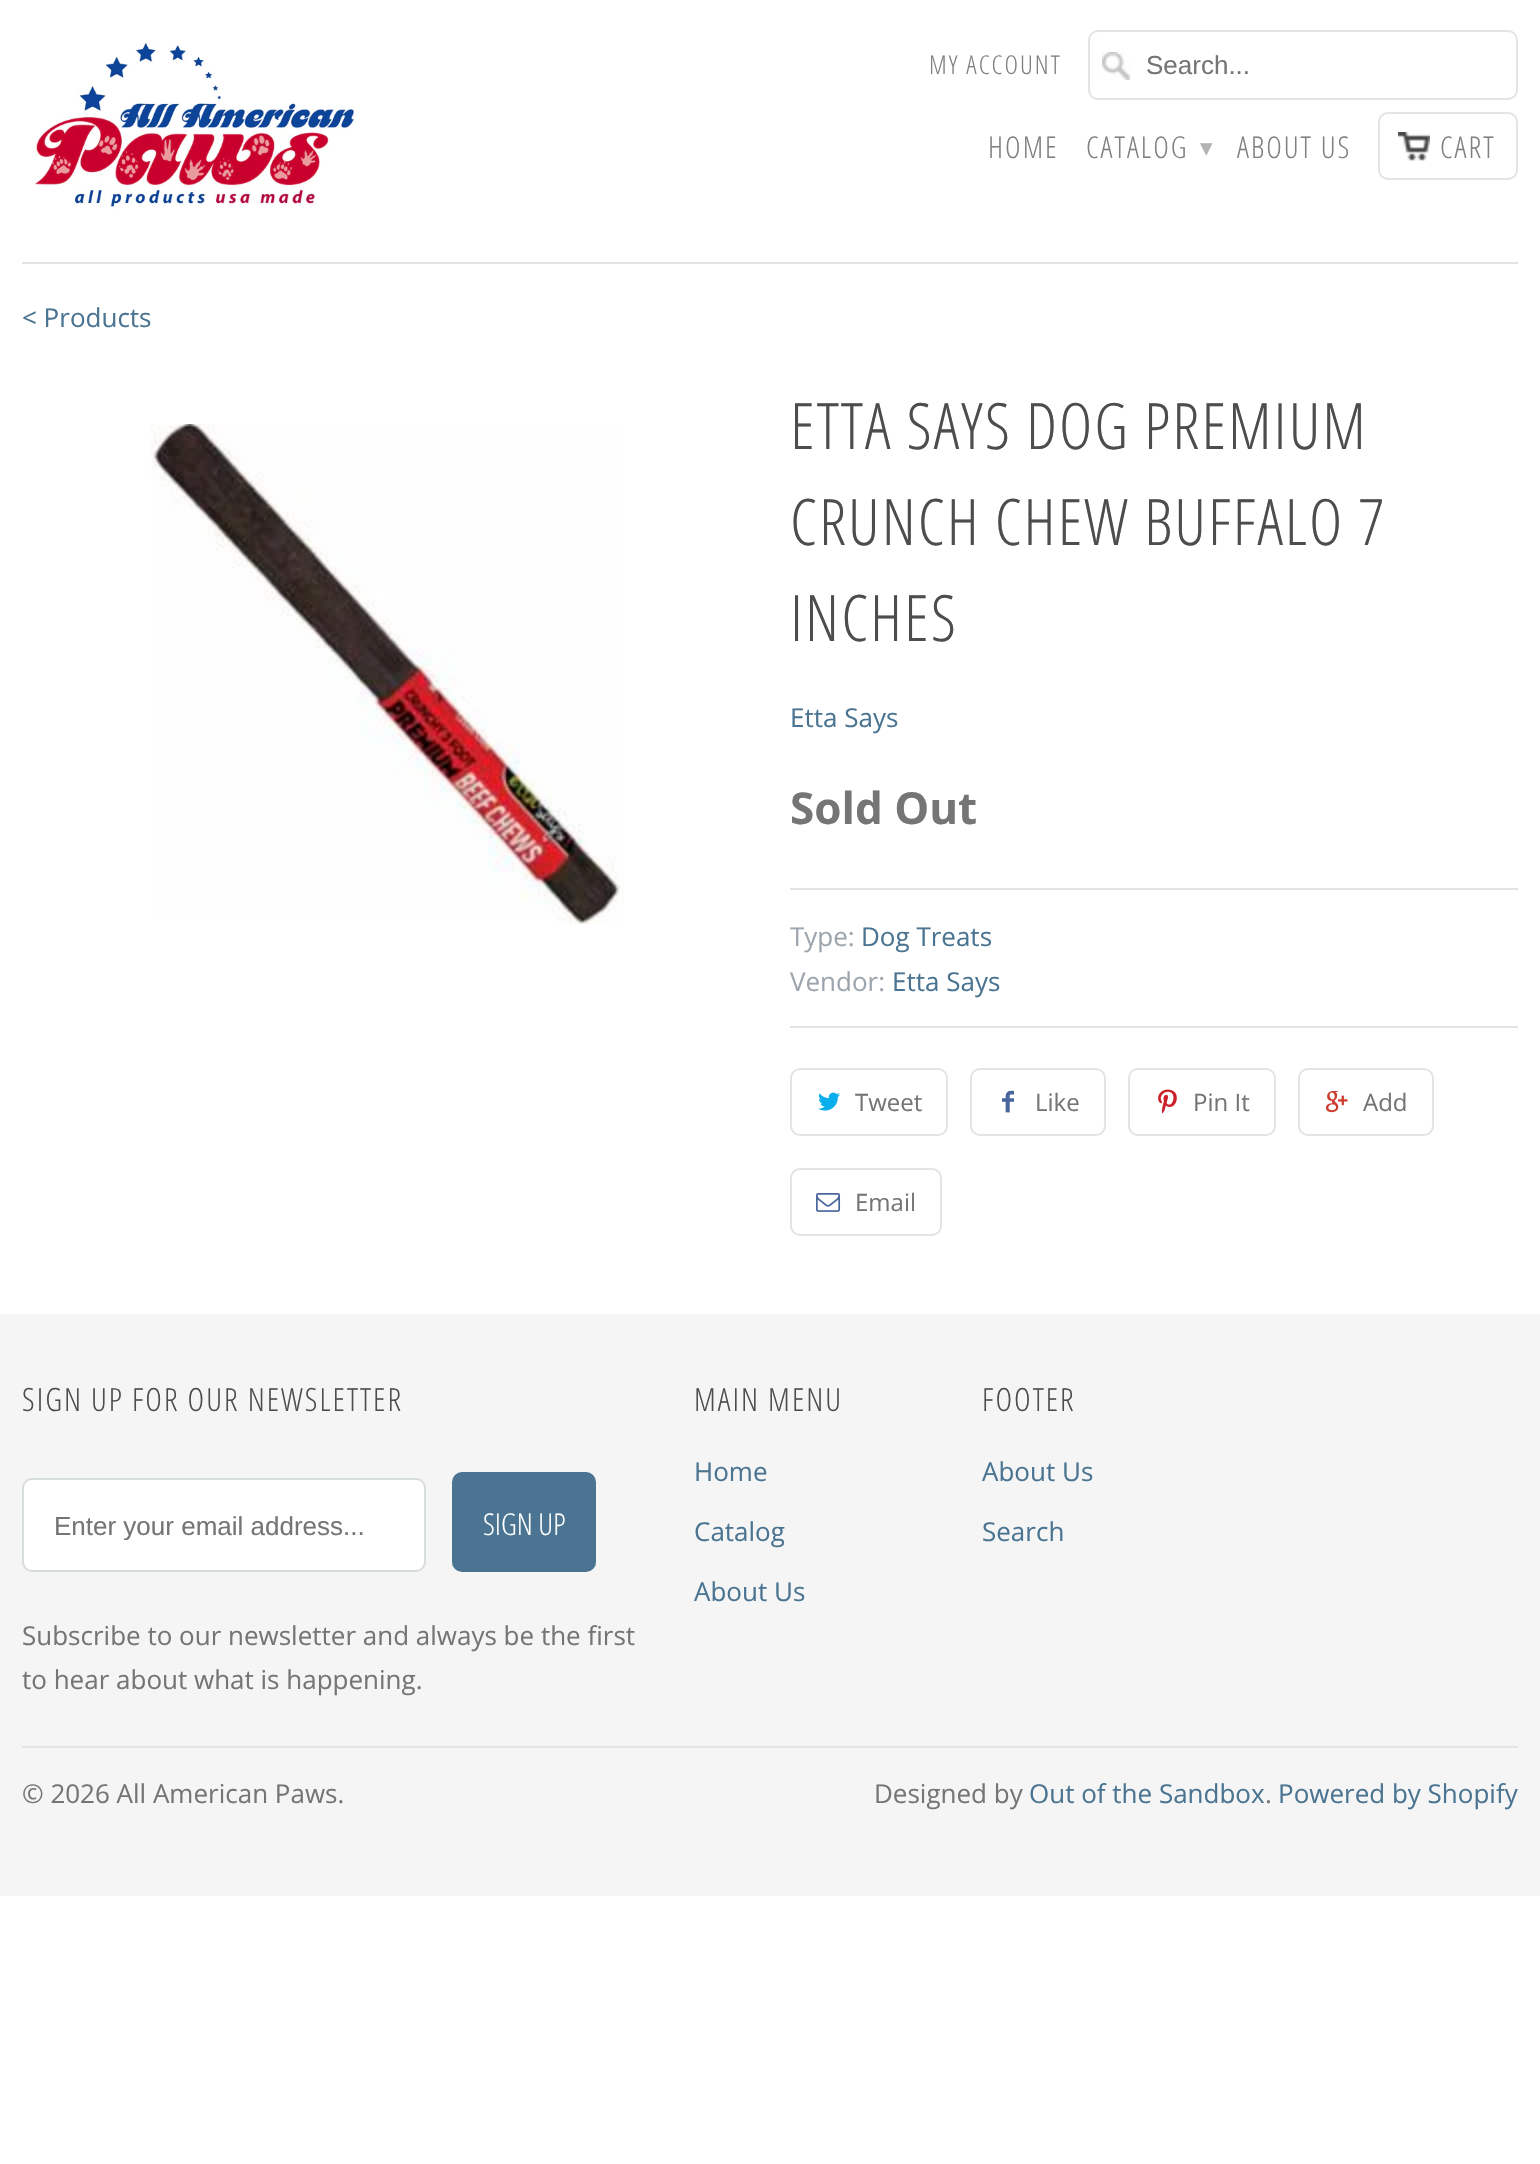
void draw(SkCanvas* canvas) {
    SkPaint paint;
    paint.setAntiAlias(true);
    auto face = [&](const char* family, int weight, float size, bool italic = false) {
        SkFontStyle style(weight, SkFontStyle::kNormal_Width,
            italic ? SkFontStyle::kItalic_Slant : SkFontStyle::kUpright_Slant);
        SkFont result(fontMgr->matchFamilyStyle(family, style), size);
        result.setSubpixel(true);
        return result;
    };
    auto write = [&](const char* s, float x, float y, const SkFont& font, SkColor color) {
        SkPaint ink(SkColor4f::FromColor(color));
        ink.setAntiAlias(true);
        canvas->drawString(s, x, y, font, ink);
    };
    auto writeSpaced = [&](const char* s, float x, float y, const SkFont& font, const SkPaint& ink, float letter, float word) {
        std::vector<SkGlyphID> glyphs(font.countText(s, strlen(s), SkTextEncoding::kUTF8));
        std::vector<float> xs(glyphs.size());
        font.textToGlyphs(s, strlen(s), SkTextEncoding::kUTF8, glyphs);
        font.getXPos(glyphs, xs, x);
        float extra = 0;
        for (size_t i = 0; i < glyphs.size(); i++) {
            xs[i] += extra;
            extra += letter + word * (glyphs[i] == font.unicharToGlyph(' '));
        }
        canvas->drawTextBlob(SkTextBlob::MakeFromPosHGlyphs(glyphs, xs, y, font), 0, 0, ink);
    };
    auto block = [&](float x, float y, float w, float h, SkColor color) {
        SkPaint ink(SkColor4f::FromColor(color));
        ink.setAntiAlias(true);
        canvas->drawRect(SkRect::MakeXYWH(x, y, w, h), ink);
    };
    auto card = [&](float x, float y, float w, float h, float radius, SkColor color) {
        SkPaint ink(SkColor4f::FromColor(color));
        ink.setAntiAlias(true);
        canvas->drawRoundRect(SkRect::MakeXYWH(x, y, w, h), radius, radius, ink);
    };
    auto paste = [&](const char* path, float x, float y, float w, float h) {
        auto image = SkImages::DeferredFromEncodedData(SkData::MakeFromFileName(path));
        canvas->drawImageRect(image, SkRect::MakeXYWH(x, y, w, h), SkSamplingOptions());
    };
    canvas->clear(SK_ColorWHITE);
    block(22, 262, 1496, 2, SkColorSetRGB(228, 228, 228));
    paste("pic1.png", 33, 41, 325, 170);
    auto kFont1 = face("Open Sans Condensed", 300, 26);
    paint.setColor(SkColorSetRGB(128, 128, 128));
    writeSpaced("MY ACCOUNT", 929, 74, kFont1, paint, 2, 0);
    paste("pic2.png", 1102, 52, 28, 28);
    paint.setStyle(SkPaint::kStroke_Style);
    paint.setStrokeWidth(2);
    paint.setColor(SkColorSetRGB(228, 228, 228));
    canvas->drawRoundRect(SkRect::MakeXYWH(1089, 31, 428, 68), 9, 9, paint);
    auto kFont2 = face("Liberation Sans", 400, 26);
    write("Search...", 1146, 74, kFont2, SkColorSetRGB(117, 117, 117));
    auto kFont3 = face("Open Sans Condensed", 300, 30);
    paint.setStyle(SkPaint::kFill_Style);
    paint.setColor(SkColorSetRGB(128, 128, 128));
    writeSpaced("HOME", 988, 158, kFont3, paint, 2, 0);
    writeSpaced("CATALOG", 1086, 158, kFont3, paint, 2, 0);
    auto kFont4 = face("DejaVu Sans", 400, 25);
    paint.setColor(SkColorSetRGB(179, 179, 179));
    writeSpaced("▾", 1200, 156, kFont4, paint, 2, 0);
    paint.setColor(SkColorSetRGB(128, 128, 128));
    writeSpaced("ABOUT US", 1237, 158, kFont3, paint, 2, 0);
    paste("pic3.png", 1398, 132, 32, 29);
    paint.setStyle(SkPaint::kStroke_Style);
    paint.setColor(SkColorSetRGB(228, 228, 228));
    canvas->drawRoundRect(SkRect::MakeXYWH(1379, 113, 138, 66), 9, 9, paint);
    paint.setStyle(SkPaint::kFill_Style);
    paint.setColor(SkColorSetRGB(128, 128, 128));
    writeSpaced("CART", 1440, 158, kFont3, paint, 2, 0);
    auto kFont5 = face("Open Sans", 400, 26);
    write("< Products", 22, 327, kFont5, SkColorSetRGB(74, 116, 145));
    paste("pic4.png", 151, 424, 473, 500);
    auto kFont6 = face("Open Sans Condensed", 300, 64);
    paint.setColor(SkColorSetRGB(77, 77, 77));
    writeSpaced("ETTA SAYS DOG PREMIUM", 790, 449, kFont6, paint, 2, 0);
    writeSpaced("CRUNCH CHEW BUFFALO 7", 790, 545, kFont6, paint, 2, 0);
    writeSpaced("INCHES", 790, 641, kFont6, paint, 2, 0);
    write("Etta Says", 790, 727, kFont5, SkColorSetRGB(74, 116, 145));
    auto kFont7 = face("Open Sans", 700, 44);
    write("Sold Out", 790, 824, kFont7, SkColorSetRGB(117, 117, 117));
    block(790, 888, 728, 2, SkColorSetRGB(228, 228, 228));
    write("Type:", 790, 946, kFont5, SkColorSetRGB(157, 166, 174));
    write("Dog Treats", 861, 946, kFont5, SkColorSetRGB(74, 116, 145));
    write("Vendor:", 790, 991, kFont5, SkColorSetRGB(157, 166, 174));
    write("Etta Says", 892, 991, kFont5, SkColorSetRGB(74, 116, 145));
    block(790, 1026, 728, 2, SkColorSetRGB(228, 228, 228));
    paint.setStyle(SkPaint::kStroke_Style);
    paint.setColor(SkColorSetRGB(228, 228, 228));
    canvas->drawRoundRect(SkRect::MakeXYWH(791, 1069, 156, 66), 9, 9, paint);
    paste("pic5.png", 818, 1092, 22, 19);
    auto kFont8 = face("Open Sans", 400, 24);
    write("Tweet", 855, 1111, kFont8, SkColorSetRGB(117, 117, 117));
    canvas->drawRoundRect(SkRect::MakeXYWH(971, 1069, 134, 66), 9, 9, paint);
    paste("pic6.png", 1002, 1090, 12, 23);
    write("Like", 1035, 1111, kFont8, SkColorSetRGB(117, 117, 117));
    canvas->drawRoundRect(SkRect::MakeXYWH(1129, 1069, 146, 66), 9, 9, paint);
    paste("pic7.png", 1158, 1089, 19, 25);
    write("Pin It", 1193, 1111, kFont8, SkColorSetRGB(117, 117, 117));
    canvas->drawRoundRect(SkRect::MakeXYWH(1299, 1069, 134, 66), 9, 9, paint);
    paste("pic8.png", 1326, 1091, 22, 22);
    write("Add", 1363, 1111, kFont8, SkColorSetRGB(117, 117, 117));
    canvas->drawRoundRect(SkRect::MakeXYWH(791, 1169, 150, 66), 9, 9, paint);
    paste("pic9.png", 816, 1193, 25, 19);
    write("Email", 855, 1211, kFont8, SkColorSetRGB(117, 117, 117));
    block(0, 1314, 1540, 582, SkColorSetRGB(245, 245, 245));
    auto kFont9 = face("Open Sans Condensed", 300, 32);
    paint.setStyle(SkPaint::kFill_Style);
    paint.setColor(SkColorSetRGB(77, 77, 77));
    writeSpaced("SIGN UP FOR OUR NEWSLETTER", 22, 1411, kFont9, paint, 2, 0);
    paint.setColor(SK_ColorWHITE);
    canvas->drawRoundRect(SkRect::MakeXYWH(23, 1479, 402, 92), 9, 9, paint);
    paint.setStyle(SkPaint::kStroke_Style);
    paint.setColor(SkColorSetRGB(215, 220, 222));
    canvas->drawRoundRect(SkRect::MakeXYWH(23, 1479, 402, 92), 9, 9, paint);
    canvas->save();
    canvas->clipRect(SkRect::MakeXYWH(54, 1510, 340, 30));
    write("Enter your email address...", 54, 1535, kFont2, SkColorSetRGB(117, 117, 117));
    canvas->restore();
    card(452, 1472, 144, 100, 10, SkColorSetRGB(74, 116, 145));
    write("SIGN UP", 483, 1535, kFont3, SK_ColorWHITE);
    write("Subscribe to our newsletter and always be the first", 22, 1645, kFont5, SkColorSetRGB(117, 117, 117));
    write("to hear about what is happening.", 22, 1689, kFont5, SkColorSetRGB(117, 117, 117));
    paint.setStyle(SkPaint::kFill_Style);
    paint.setColor(SkColorSetRGB(77, 77, 77));
    writeSpaced("MAIN MENU", 694, 1411, kFont9, paint, 2, 0);
    write("Home", 694, 1481, kFont5, SkColorSetRGB(74, 116, 145));
    write("Catalog", 694, 1541, kFont5, SkColorSetRGB(74, 116, 145));
    write("About Us", 694, 1601, kFont5, SkColorSetRGB(74, 116, 145));
    writeSpaced("FOOTER", 982, 1411, kFont9, paint, 2, 0);
    write("About Us", 982, 1481, kFont5, SkColorSetRGB(74, 116, 145));
    write("Search", 982, 1541, kFont5, SkColorSetRGB(74, 116, 145));
    block(22, 1746, 1496, 2, SkColorSetRGB(228, 228, 228));
    write("© 2026 All American Paws.", 22, 1803, kFont5, SkColorSetRGB(117, 117, 117));
    write("Designed by", 874, 1803, kFont5, SkColorSetRGB(117, 117, 117));
    write("Out of the Sandbox", 1029, 1803, kFont5, SkColorSetRGB(74, 116, 145));
    write(".", 1265, 1803, kFont5, SkColorSetRGB(117, 117, 117));
    write("Powered by Shopify", 1278, 1803, kFont5, SkColorSetRGB(74, 116, 145));
}
